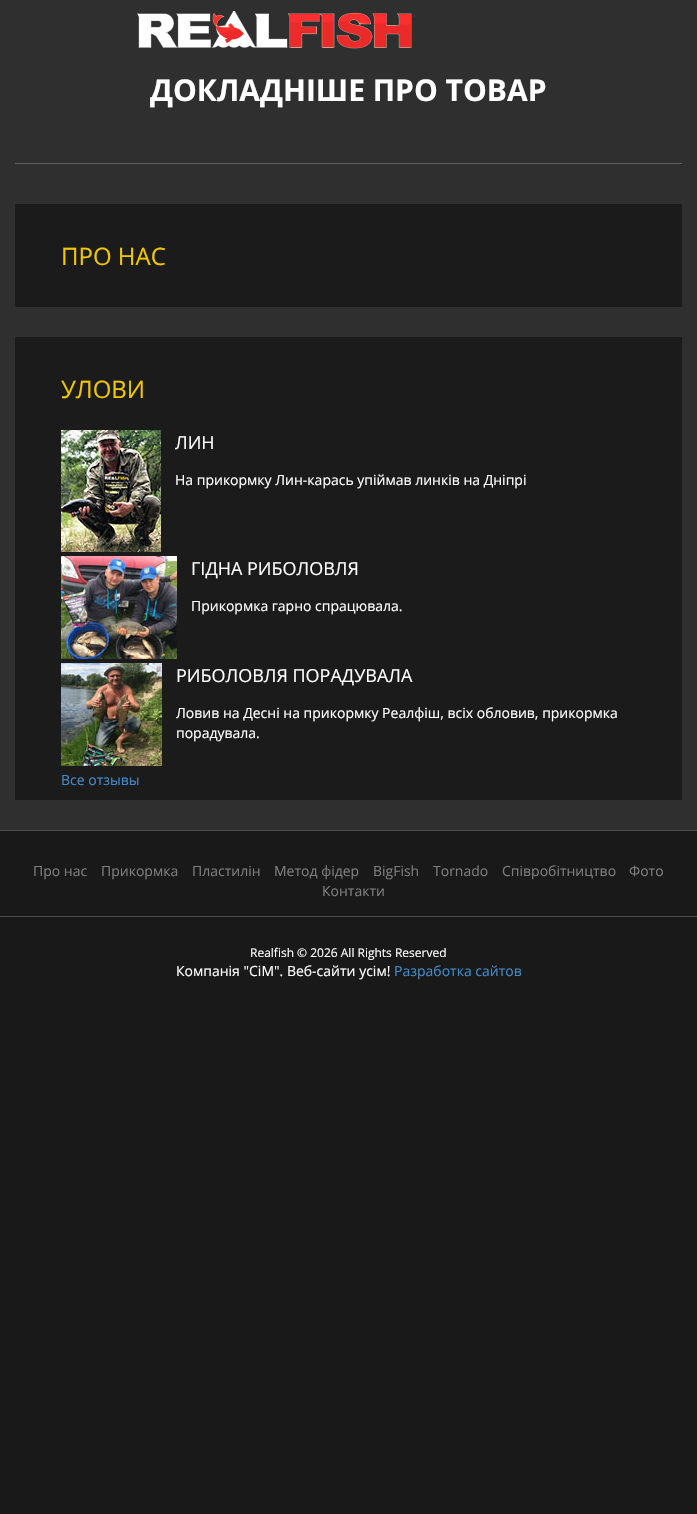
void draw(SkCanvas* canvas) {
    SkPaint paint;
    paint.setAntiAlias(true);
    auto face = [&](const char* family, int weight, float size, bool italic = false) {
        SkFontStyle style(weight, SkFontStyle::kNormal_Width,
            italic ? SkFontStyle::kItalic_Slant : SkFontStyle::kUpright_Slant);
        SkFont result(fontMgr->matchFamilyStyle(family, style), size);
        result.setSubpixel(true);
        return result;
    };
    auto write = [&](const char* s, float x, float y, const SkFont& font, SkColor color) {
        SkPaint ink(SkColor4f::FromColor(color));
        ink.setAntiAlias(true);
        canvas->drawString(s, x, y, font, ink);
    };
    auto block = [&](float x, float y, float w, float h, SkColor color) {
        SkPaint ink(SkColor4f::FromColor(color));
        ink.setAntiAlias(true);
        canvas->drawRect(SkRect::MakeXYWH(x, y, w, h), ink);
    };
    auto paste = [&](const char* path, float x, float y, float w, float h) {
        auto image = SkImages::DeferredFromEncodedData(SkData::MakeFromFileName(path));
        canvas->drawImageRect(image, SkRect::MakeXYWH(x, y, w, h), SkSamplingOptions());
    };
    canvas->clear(SkColorSetRGB(25, 25, 25));
    block(0, 0, 697, 830, SkColorSetRGB(47, 47, 47));
    paste("pic1.png", 137, 11, 278, 38);
    auto kFont1 = face("Open Sans", 700, 30);
    write("ДОКЛАДНІШЕ ПРО ТОВАР", 150, 101, kFont1, SK_ColorWHITE);
    block(15, 163, 667, 1, SkColorSetRGB(93, 93, 93));
    block(15, 204, 667, 103, SkColorSetRGB(27, 27, 27));
    auto kFont2 = face("Open Sans", 400, 24);
    write("ПРО НАС", 61, 265, kFont2, SkColorSetRGB(239, 199, 0));
    block(15, 337, 667, 463, SkColorSetRGB(27, 27, 27));
    write("УЛОВИ", 61, 398, kFont2, SkColorSetRGB(239, 199, 0));
    paste("pic2.png", 61, 430, 100, 122);
    auto kFont3 = face("Open Sans", 400, 18);
    write("ЛИН", 175, 449, kFont3, SK_ColorWHITE);
    auto kFont4 = face("Open Sans", 400, 14);
    write("На прикормку Лин-карась упіймав линків на Дніпрі", 175, 485, kFont4, SK_ColorWHITE);
    paste("pic3.png", 61, 556, 116, 103);
    write("ГІДНА РИБОЛОВЛЯ", 191, 575, kFont3, SK_ColorWHITE);
    write("Прикормка гарно спрацювала.", 191, 611, kFont4, SK_ColorWHITE);
    paste("pic4.png", 61, 663, 101, 103);
    write("РИБОЛОВЛЯ ПОРАДУВАЛА", 176, 682, kFont3, SK_ColorWHITE);
    write("Ловив на Десні на прикормку Реалфіш, всіх обловив, прикормка", 176, 718, kFont4, SK_ColorWHITE);
    write("порадувала.", 176, 738, kFont4, SK_ColorWHITE);
    write("Все отзывы", 61, 785, kFont4, SkColorSetRGB(66, 139, 202));
    block(0, 830, 697, 1, SkColorSetRGB(76, 76, 76));
    block(0, 916, 697, 1, SkColorSetRGB(76, 76, 76));
    write("Про нас", 33, 876, kFont4, SkColorSetRGB(125, 125, 125));
    write("Прикормка", 101, 876, kFont4, SkColorSetRGB(125, 125, 125));
    write("Пластилін", 192, 876, kFont4, SkColorSetRGB(125, 125, 125));
    write("Метод фідер", 274, 876, kFont4, SkColorSetRGB(125, 125, 125));
    write("BigFish", 373, 876, kFont4, SkColorSetRGB(125, 125, 125));
    write("Tornado", 433, 876, kFont4, SkColorSetRGB(125, 125, 125));
    write("Співробітництво", 502, 876, kFont4, SkColorSetRGB(125, 125, 125));
    write("Фото", 629, 876, kFont4, SkColorSetRGB(125, 125, 125));
    write("Контакти", 322, 896, kFont4, SkColorSetRGB(125, 125, 125));
    auto kFont5 = face("Open Sans", 400, 12);
    write("Realfish © 2026 All Rights Reserved", 250, 957, kFont5, SK_ColorWHITE);
    write("Компанія \"СіМ\". Веб-cайти усім!", 176, 976, kFont4, SK_ColorWHITE);
    write("Разработка сайтов", 394, 976, kFont4, SkColorSetRGB(66, 139, 202));
}
